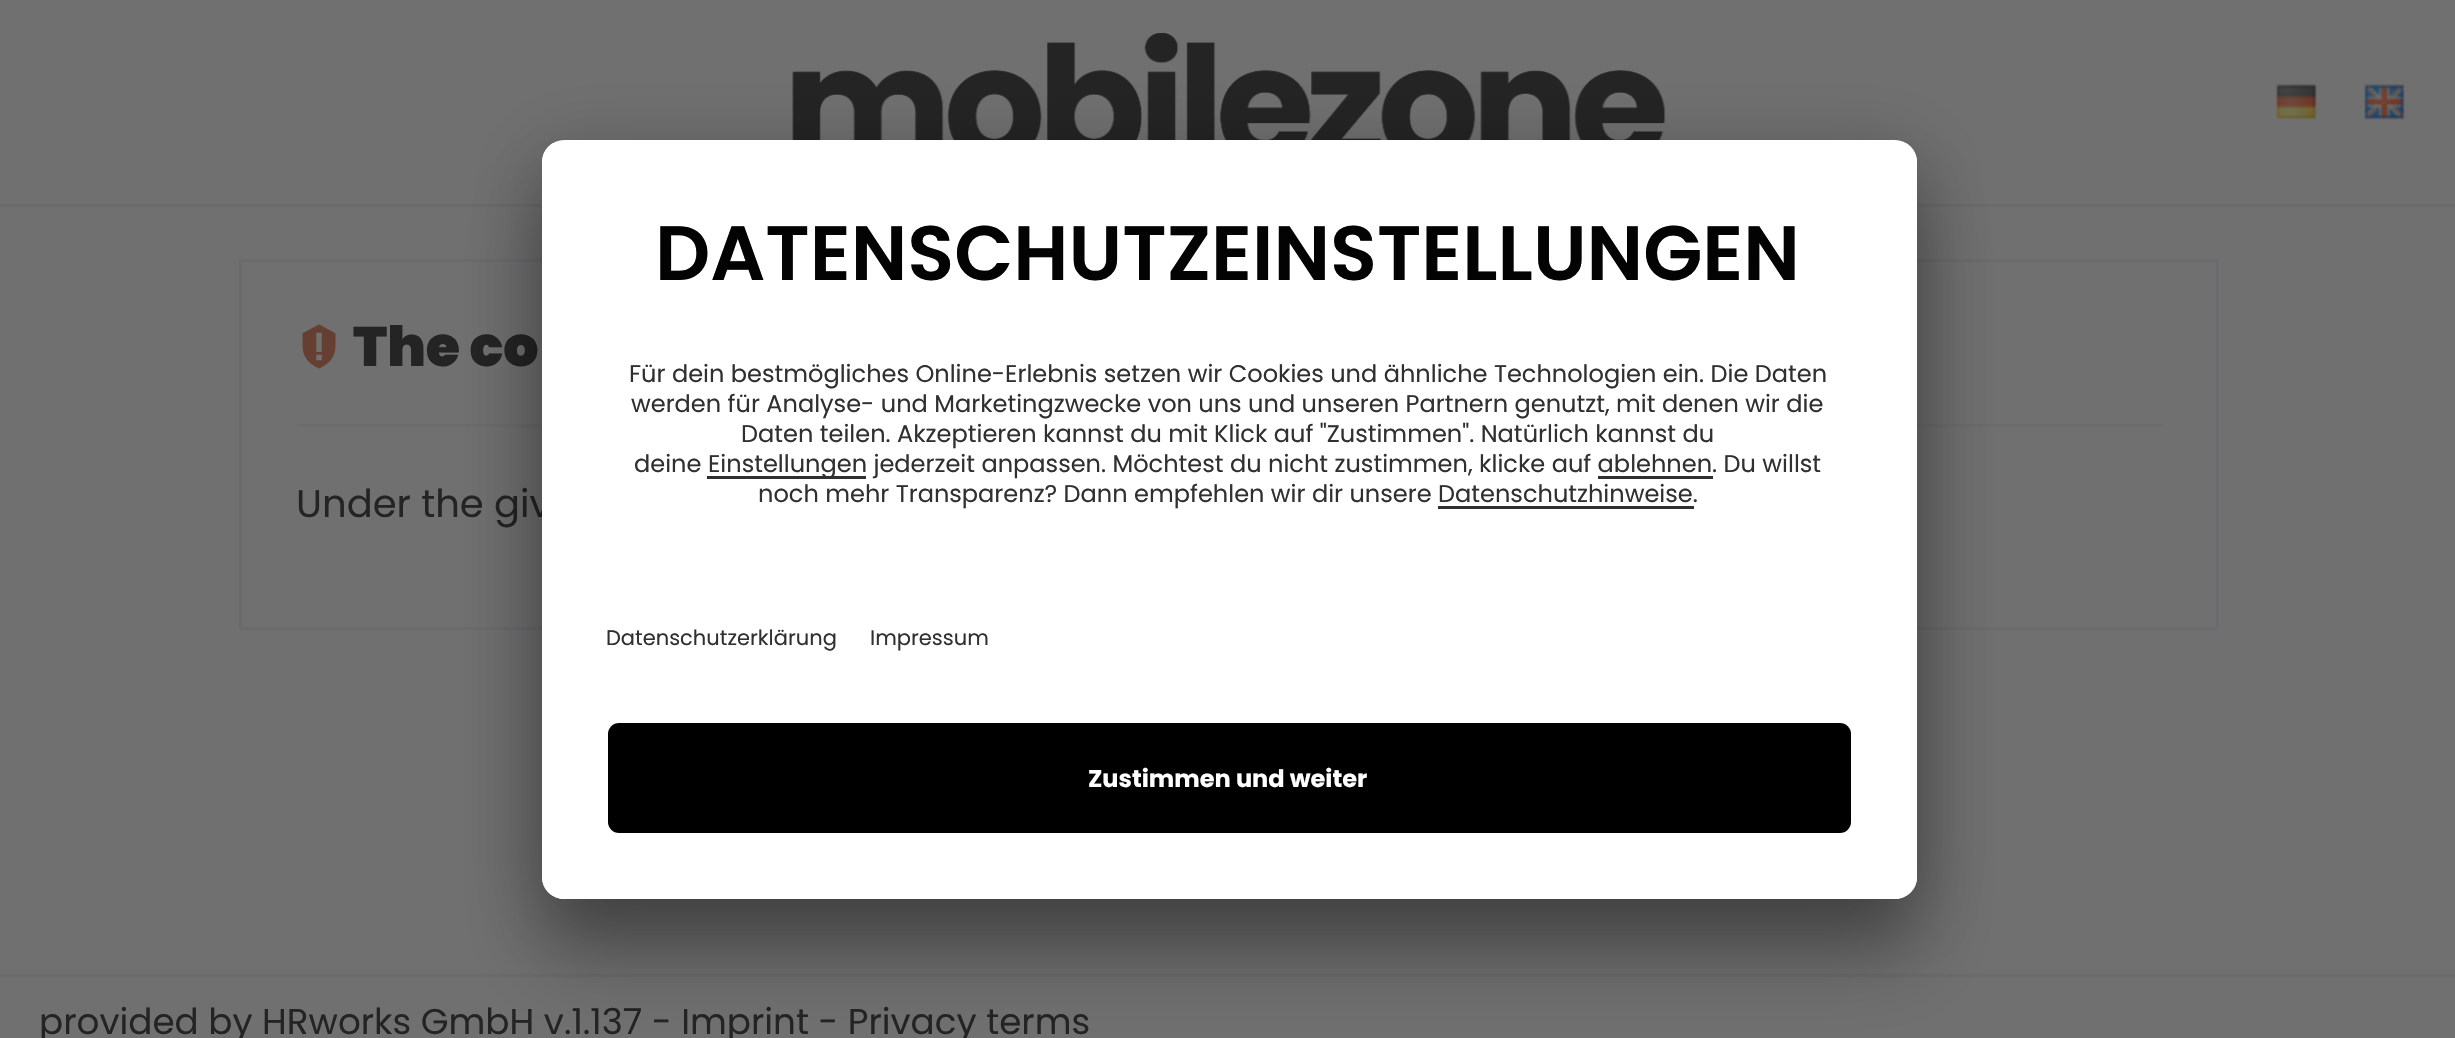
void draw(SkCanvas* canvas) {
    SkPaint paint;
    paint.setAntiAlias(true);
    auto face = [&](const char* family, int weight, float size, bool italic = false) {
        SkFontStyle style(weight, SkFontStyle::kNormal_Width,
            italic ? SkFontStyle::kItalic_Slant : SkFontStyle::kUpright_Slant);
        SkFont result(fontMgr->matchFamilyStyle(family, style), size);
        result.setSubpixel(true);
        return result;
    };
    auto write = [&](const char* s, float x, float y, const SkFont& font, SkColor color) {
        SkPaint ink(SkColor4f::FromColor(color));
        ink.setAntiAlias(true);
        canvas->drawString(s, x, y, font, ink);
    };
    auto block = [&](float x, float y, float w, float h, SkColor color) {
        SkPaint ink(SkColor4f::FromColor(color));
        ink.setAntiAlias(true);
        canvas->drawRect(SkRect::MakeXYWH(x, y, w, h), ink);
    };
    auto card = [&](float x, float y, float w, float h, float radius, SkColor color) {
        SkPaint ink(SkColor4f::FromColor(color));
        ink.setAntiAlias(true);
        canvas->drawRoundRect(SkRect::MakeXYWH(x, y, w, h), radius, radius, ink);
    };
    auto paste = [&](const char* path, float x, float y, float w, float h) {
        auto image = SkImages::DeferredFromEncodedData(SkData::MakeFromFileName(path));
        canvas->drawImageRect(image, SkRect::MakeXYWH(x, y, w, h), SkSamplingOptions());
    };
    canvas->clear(SkColorSetRGB(112, 112, 112));
    block(0, 204, 2455, 3, SkColorSetRGB(106, 107, 109));
    paste("pic1.png", 792, 33, 874, 107);
    paste("pic2.png", 2276, 83, 41, 37);
    paste("pic3.png", 2364, 83, 41, 37);
    paint.setStyle(SkPaint::kStroke_Style);
    paint.setStrokeWidth(3);
    paint.setColor(SkColorSetRGB(105, 107, 108));
    canvas->drawRect(SkRect::MakeXYWH(240.5f, 260.5f, 1977, 368), paint);
    block(297, 424, 1865, 3, SkColorSetRGB(107, 108, 109));
    paste("pic4.png", 302, 324, 34, 45);
    auto kFont1 = face("Poppins", 900, 55.5f);
    write("The co", 353, 366, kFont1, SkColorSetRGB(36, 36, 36));
    auto kFont2 = face("Poppins", 400, 38.5f);
    write("Under the giv", 296, 517, kFont2, SkColorSetRGB(36, 36, 36));
    block(0, 974, 2455, 3, SkColorSetRGB(106, 107, 109));
    auto kFont3 = face("Poppins", 400, 35.75f);
    write("provided by HRworks GmbH v.1.137 - Imprint - Privacy terms", 39, 1034, kFont3, SkColorSetRGB(36, 36, 36));
    paint.setStyle(SkPaint::kFill_Style);
    paint.setColor(SkColorSetARGB(77, 0, 0, 0));
    paint.setMaskFilter(SkMaskFilter::MakeBlur(kNormal_SkBlurStyle, 38.5f));
    canvas->drawRoundRect(SkRect::MakeXYWH(542, 195, 1375, 759), 22, 22, paint);
    paint.setMaskFilter(nullptr);
    paint.setColor(SkColorSetARGB(56, 0, 0, 0));
    paint.setMaskFilter(SkMaskFilter::MakeBlur(kNormal_SkBlurStyle, 36));
    canvas->drawRoundRect(SkRect::MakeXYWH(542, 154, 1375, 759), 22, 22, paint);
    paint.setMaskFilter(nullptr);
    card(542, 140, 1375, 759, 22, SK_ColorWHITE);
    canvas->save();
    canvas->clipPath(SkPathBuilder().moveTo(564, 140).lineTo(1895, 140).cubicTo(1907, 140, 1917, 150, 1917, 162).lineTo(1917, 877).cubicTo(1917, 889, 1907, 899, 1895, 899).lineTo(564, 899).cubicTo(552, 899, 542, 889, 542, 877).lineTo(542, 162).cubicTo(542, 150, 552, 140, 564, 140).close().detach(), true);
    canvas->clipPath(SkPathBuilder().moveTo(564, 140).lineTo(1895, 140).cubicTo(1907, 140, 1917, 150, 1917, 162).lineTo(1917, 701).lineTo(542, 701).lineTo(542, 162).cubicTo(542, 150, 552, 140, 564, 140).close().detach(), true);
    block(542, 143, 1375, 558, SK_ColorWHITE);
    canvas->restore();
    auto kFont4 = face("Poppins", 600, 77);
    write("DATENSCHUTZEINSTELLUNGEN", 655, 280, kFont4, SkColorSetRGB(3, 3, 3));
    auto kFont5 = face("Poppins", 400, 24.05f);
    write("Für dein bestmögliches Online-Erlebnis setzen wir Cookies und ähnliche Technologien ein. Die Daten", 629, 382, kFont5, SkColorSetRGB(48, 48, 48));
    write("werden für Analyse- und Marketingzwecke von uns und unseren Partnern genutzt, mit denen wir die", 631, 412, kFont5, SkColorSetRGB(48, 48, 48));
    write("Daten teilen. Akzeptieren kannst du mit Klick auf \"Zustimmen\". Natürlich kannst du", 741, 442, kFont5, SkColorSetRGB(48, 48, 48));
    write("deine", 634, 472, kFont5, SkColorSetRGB(48, 48, 48));
    block(707, 476, 159, 3, SkColorSetRGB(48, 48, 48));
    write("Einstellungen jederzeit anpassen. Möchtest du nicht zustimmen, klicke auf ablehnen. Du willst", 708, 472, kFont5, SkColorSetRGB(48, 48, 48));
    block(1598, 476, 115, 3, SkColorSetRGB(48, 48, 48));
    write("noch mehr Transparenz? Dann empfehlen wir dir unsere Datenschutzhinweise.", 758, 502, kFont5, SkColorSetRGB(48, 48, 48));
    block(1438, 506, 256, 3, SkColorSetRGB(48, 48, 48));
    auto kFont6 = face("Poppins", 400, 21);
    write("Datenschutzerklärung", 606, 645, kFont6, SkColorSetRGB(48, 48, 48));
    write("Impressum", 870, 645, kFont6, SkColorSetRGB(48, 48, 48));
    paint.setColor(SK_ColorWHITE);
    canvas->drawPath(SkPathBuilder().moveTo(542, 701).lineTo(1917, 701).lineTo(1917, 877).cubicTo(1917, 889, 1907, 899, 1895, 899).lineTo(564, 899).cubicTo(552, 899, 542, 889, 542, 877).close().detach(), paint);
    card(608, 723, 1243, 110, 11, SK_ColorBLACK);
    auto kFont7 = face("Poppins", 700, 24.05f);
    write("Zustimmen und weiter", 1088, 787, kFont7, SK_ColorWHITE);
}
